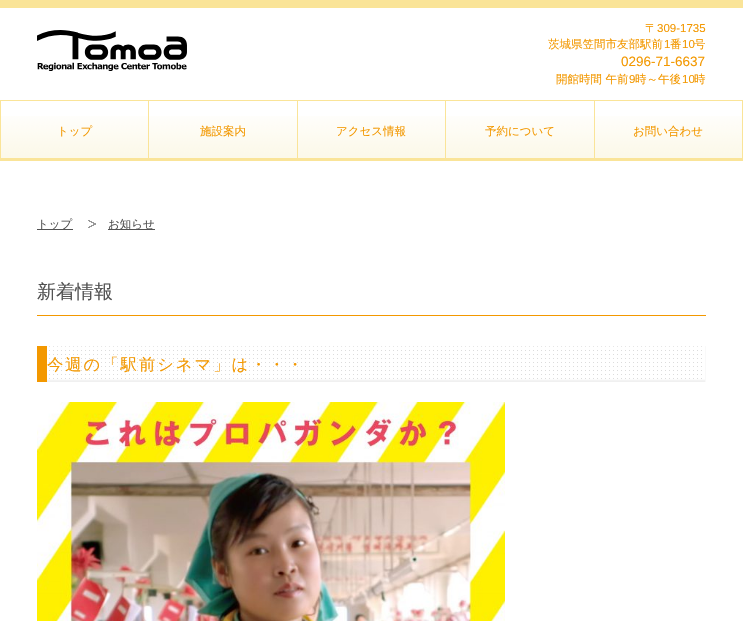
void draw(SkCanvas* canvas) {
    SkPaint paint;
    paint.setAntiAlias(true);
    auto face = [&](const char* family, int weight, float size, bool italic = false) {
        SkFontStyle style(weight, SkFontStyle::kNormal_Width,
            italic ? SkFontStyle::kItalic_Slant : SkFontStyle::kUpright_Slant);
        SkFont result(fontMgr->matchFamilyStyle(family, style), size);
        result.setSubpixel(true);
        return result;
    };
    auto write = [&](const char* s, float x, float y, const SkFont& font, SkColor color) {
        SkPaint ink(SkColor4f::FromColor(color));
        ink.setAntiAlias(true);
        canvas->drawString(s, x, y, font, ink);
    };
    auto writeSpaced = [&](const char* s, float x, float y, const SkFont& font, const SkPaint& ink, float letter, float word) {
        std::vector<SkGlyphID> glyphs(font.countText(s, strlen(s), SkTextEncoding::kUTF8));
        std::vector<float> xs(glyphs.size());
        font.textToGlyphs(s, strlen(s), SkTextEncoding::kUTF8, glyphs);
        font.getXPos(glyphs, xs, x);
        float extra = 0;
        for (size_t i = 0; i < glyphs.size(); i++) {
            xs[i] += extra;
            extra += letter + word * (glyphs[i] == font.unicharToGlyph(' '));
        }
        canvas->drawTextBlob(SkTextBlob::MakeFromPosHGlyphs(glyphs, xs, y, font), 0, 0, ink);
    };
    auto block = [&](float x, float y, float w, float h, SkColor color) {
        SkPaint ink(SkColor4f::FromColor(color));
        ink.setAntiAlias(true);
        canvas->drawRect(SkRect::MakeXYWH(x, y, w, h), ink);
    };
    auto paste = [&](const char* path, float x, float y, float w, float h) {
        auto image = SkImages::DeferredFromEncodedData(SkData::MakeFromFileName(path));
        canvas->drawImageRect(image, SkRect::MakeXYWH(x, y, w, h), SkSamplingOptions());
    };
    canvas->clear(SK_ColorWHITE);
    block(0, 0, 743, 8, SkColorSetRGB(250, 228, 152));
    paste("pic1.png", 37, 30, 150, 41);
    auto kFont1 = face("WenQuanYi Zen Hei", 500, 11.5f);
    write("〒", 645, 32, kFont1, SkColorSetRGB(243, 152, 0));
    auto kFont2 = face("Liberation Sans", 400, 11.5f);
    write("309-1735", 657, 32, kFont2, SkColorSetRGB(243, 152, 0));
    write("茨城県笠間市友部駅前", 548, 48, kFont1, SkColorSetRGB(243, 152, 0));
    write("1", 664, 48, kFont2, SkColorSetRGB(243, 152, 0));
    write("番", 670, 48, kFont1, SkColorSetRGB(243, 152, 0));
    write("10", 682, 48, kFont2, SkColorSetRGB(243, 152, 0));
    write("号", 694, 48, kFont1, SkColorSetRGB(243, 152, 0));
    auto kFont3 = face("Liberation Sans", 400, 13.5f);
    write("0296-71-6637", 621, 66, kFont3, SkColorSetRGB(243, 152, 0));
    write("開館時間 午前", 556, 83, kFont1, SkColorSetRGB(243, 152, 0));
    write("9", 629, 83, kFont2, SkColorSetRGB(243, 152, 0));
    write("時～午後", 635, 83, kFont1, SkColorSetRGB(243, 152, 0));
    write("10", 682, 83, kFont2, SkColorSetRGB(243, 152, 0));
    write("時", 694, 83, kFont1, SkColorSetRGB(243, 152, 0));
    paste("pic2.png", 1, 116, 741, 45);
    block(0, 100, 743, 1, SkColorSetRGB(250, 228, 152));
    block(0, 101, 1, 60, SkColorSetRGB(250, 228, 152));
    block(148, 101, 1, 60, SkColorSetRGB(250, 228, 152));
    write("トップ", 57, 135, kFont1, SkColorSetRGB(243, 152, 0));
    block(297, 101, 1, 60, SkColorSetRGB(250, 228, 152));
    write("施設案内", 200, 135, kFont1, SkColorSetRGB(243, 152, 0));
    block(445, 101, 1, 60, SkColorSetRGB(250, 228, 152));
    write("アクセス情報", 336, 135, kFont1, SkColorSetRGB(243, 152, 0));
    block(594, 101, 1, 60, SkColorSetRGB(250, 228, 152));
    write("予約について", 485, 135, kFont1, SkColorSetRGB(243, 152, 0));
    block(742, 101, 1, 60, SkColorSetRGB(250, 228, 152));
    write("お問い合わせ", 633, 135, kFont1, SkColorSetRGB(243, 152, 0));
    block(37, 229, 36, 1, SkColorSetRGB(82, 82, 82));
    write("トップ", 37, 228, kFont1, SkColorSetRGB(82, 82, 82));
    paste("pic3.png", 88, 220, 8, 8);
    block(108, 229, 47, 1, SkColorSetRGB(82, 82, 82));
    write("お知らせ", 108, 228, kFont1, SkColorSetRGB(82, 82, 82));
    block(37, 315, 669, 1, SkColorSetRGB(243, 152, 0));
    auto kFont4 = face("WenQuanYi Zen Hei", 500, 19);
    write("新着情報", 37, 298, kFont4, SkColorSetRGB(82, 82, 82));
    paste("pic4.png", 47, 346, 658, 36);
    block(705, 346, 1, 36, SkColorSetRGB(249, 249, 249));
    block(37, 346, 10, 36, SkColorSetRGB(243, 152, 0));
    auto kFont5 = face("WenQuanYi Zen Hei", 500, 16.3f);
    paint.setColor(SkColorSetRGB(243, 152, 0));
    writeSpaced("今週の「駅前シネマ」は・・・", 47, 370, kFont5, paint, 2, 0);
    paste("pic5.png", 37, 402, 468, 219);
}
